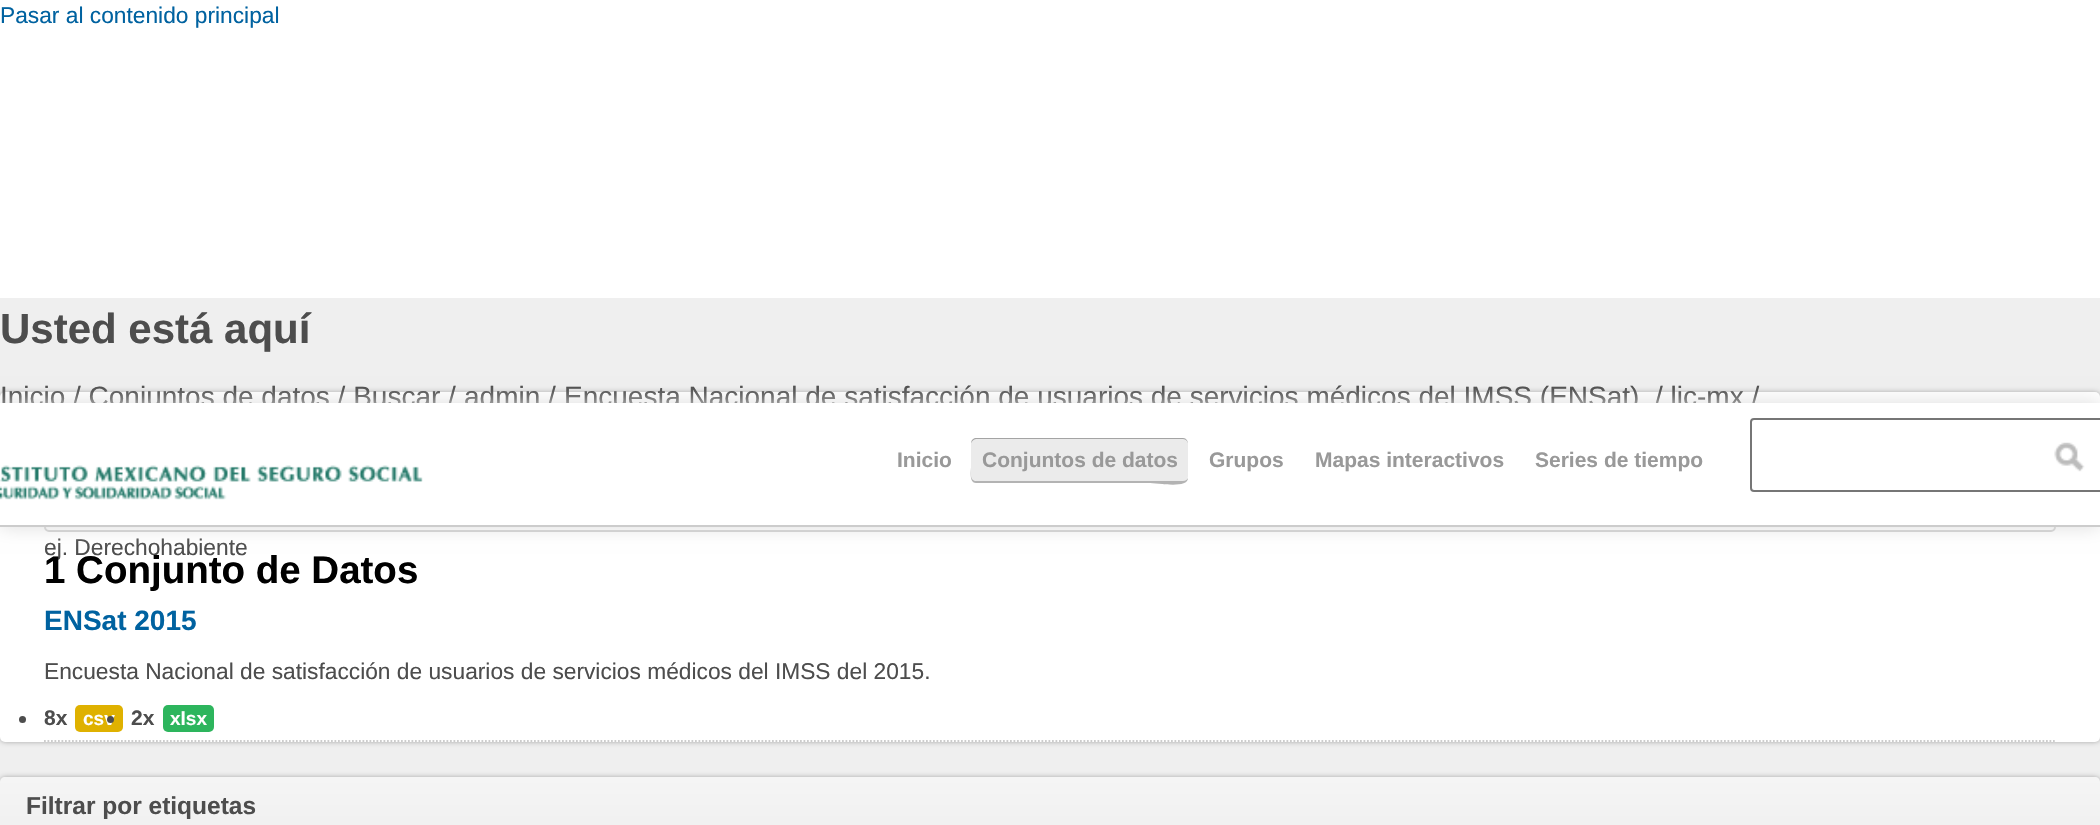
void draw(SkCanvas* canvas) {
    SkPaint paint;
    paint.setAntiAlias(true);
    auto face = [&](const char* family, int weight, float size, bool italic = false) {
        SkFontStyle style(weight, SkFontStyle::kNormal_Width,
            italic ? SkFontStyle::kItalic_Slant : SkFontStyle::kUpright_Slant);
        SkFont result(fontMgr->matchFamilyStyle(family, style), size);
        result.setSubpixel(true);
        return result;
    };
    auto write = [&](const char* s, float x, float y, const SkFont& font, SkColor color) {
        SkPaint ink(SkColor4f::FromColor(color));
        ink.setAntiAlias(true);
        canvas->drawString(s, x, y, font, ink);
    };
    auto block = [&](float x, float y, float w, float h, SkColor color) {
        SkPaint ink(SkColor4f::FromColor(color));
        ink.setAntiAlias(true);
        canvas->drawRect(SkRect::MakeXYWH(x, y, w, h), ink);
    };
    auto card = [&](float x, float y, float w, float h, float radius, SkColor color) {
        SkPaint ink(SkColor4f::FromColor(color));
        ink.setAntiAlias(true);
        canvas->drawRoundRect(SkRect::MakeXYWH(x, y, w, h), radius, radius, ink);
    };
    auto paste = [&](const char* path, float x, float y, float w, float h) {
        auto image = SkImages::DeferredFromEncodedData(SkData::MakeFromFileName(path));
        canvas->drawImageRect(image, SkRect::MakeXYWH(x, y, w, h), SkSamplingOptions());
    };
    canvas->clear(SK_ColorWHITE);
    auto kFont1 = face("Liberation Sans", 400, 22.75f);
    write("Pasar al contenido principal", 0, 23, kFont1, SkColorSetRGB(0, 98, 160));
    block(0, 298, 2100, 484, SkColorSetRGB(239, 239, 239));
    auto kFont2 = face("Liberation Sans", 700, 42);
    write("Usted está aquí", 0, 343, kFont2, SkColorSetRGB(77, 77, 77));
    paint.setColor(SkColorSetARGB(77, 0, 0, 0));
    paint.setMaskFilter(SkMaskFilter::MakeBlur(kNormal_SkBlurStyle, 2.5f));
    canvas->drawRoundRect(SkRect::MakeXYWH(0, 392, 2100, 350), 5, 5, paint);
    paint.setMaskFilter(nullptr);
    card(0, 392, 2100, 350, 5, SK_ColorWHITE);
    auto kFont3 = face("Liberation Sans", 400, 28);
    write("Inicio", 0, 406, kFont3, SkColorSetRGB(77, 77, 77));
    write("/ Conjuntos de datos / Buscar /", 73, 406, kFont3, SkColorSetRGB(77, 77, 77));
    write("admin", 464, 406, kFont3, SkColorSetRGB(77, 77, 77));
    write("/", 548, 406, kFont3, SkColorSetRGB(77, 77, 77));
    write("Encuesta Nacional de satisfacción de usuarios de servicios médicos del IMSS (ENSat)", 564, 406, kFont3, SkColorSetRGB(77, 77, 77));
    write("/ lic-mx /", 1655, 406, kFont3, SkColorSetRGB(77, 77, 77));
    paint.setStyle(SkPaint::kStroke_Style);
    paint.setStrokeWidth(2);
    paint.setColor(SkColorSetRGB(204, 204, 204));
    canvas->drawRoundRect(SkRect::MakeXYWH(45, 449, 2010, 82), 4, 4, paint);
    write("ej. Derechohabiente", 44, 555, kFont1, SkColorSetRGB(77, 77, 77));
    auto kFont4 = face("Liberation Sans", 700, 38.5f);
    write("1 Conjunto de Datos", 44, 583, kFont4, SK_ColorBLACK);
    paint.setStrokeWidth(1.8f);
    paint.setPathEffect(SkDashPathEffect::Make({{1.75f, 1.75f}}, 0));
    canvas->drawPath(SkPathBuilder().moveTo(44, 741).lineTo(2056, 741).detach(), paint);
    paint.setPathEffect(nullptr);
    auto kFont5 = face("Liberation Sans", 700, 28);
    write("ENSat 2015", 44, 630, kFont5, SkColorSetRGB(0, 98, 160));
    write("Encuesta Nacional de satisfacción de usuarios de servicios médicos del IMSS del 2015.", 44, 679, kFont1, SkColorSetRGB(77, 77, 77));
    paint.setStyle(SkPaint::kFill_Style);
    paint.setColor(SkColorSetRGB(77, 77, 77));
    canvas->drawCircle(22.5f, 719.5f, 3.5f, paint);
    auto kFont6 = face("Liberation Sans", 700, 21);
    write("8x", 44, 725, kFont6, SkColorSetRGB(77, 77, 77));
    card(75, 705, 48, 27, 5, SkColorSetRGB(223, 177, 0));
    auto kFont7 = face("Liberation Sans", 700, 19);
    write("csv", 83, 725, kFont7, SK_ColorWHITE);
    canvas->drawCircle(110.5f, 719.5f, 3.5f, paint);
    write("2x", 131, 725, kFont6, SkColorSetRGB(77, 77, 77));
    card(163, 705, 51, 27, 5, SkColorSetRGB(45, 181, 93));
    write("xlsx", 170, 725, kFont7, SK_ColorWHITE);
    paint.setColor(SkColorSetARGB(77, 0, 0, 0));
    paint.setMaskFilter(SkMaskFilter::MakeBlur(kNormal_SkBlurStyle, 2.5f));
    canvas->drawRoundRect(SkRect::MakeXYWH(0, 777, 2100, 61), 5, 5, paint);
    paint.setMaskFilter(nullptr);
    {
        const SkColor colors[] = {SkColorSetRGB(245, 245, 245), SkColorSetRGB(240, 240, 240)};
        const float stops[] = {0, 1};
        const SkPoint ends[] = {{1050, 777}, {1050, 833}};
        paint.setShader(SkGradientShader::MakeLinear(ends, colors, stops, 2, SkTileMode::kClamp));
        paint.setAlpha(255);
    }
    canvas->drawPath(SkPathBuilder().moveTo(5, 777).lineTo(2095, 777).cubicTo(2098, 777, 2100, 779, 2100, 782).lineTo(2100, 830).lineTo(0, 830).lineTo(0, 782).cubicTo(0, 779, 2, 777, 5, 777).close().detach(), paint);
    auto kFont8 = face("Liberation Sans", 700, 24.5f);
    write("Filtrar por etiquetas", 26, 814, kFont8, SkColorSetRGB(77, 77, 77));
    paint.setShader(nullptr);
    paint.setColor(SkColorSetRGB(221, 221, 221));
    paint.setMaskFilter(SkMaskFilter::MakeBlur(kNormal_SkBlurStyle, 9));
    canvas->drawRect(SkRect::MakeXYWH(0, 403, 2100, 124), paint);
    paint.setMaskFilter(nullptr);
    block(0, 403, 2100, 122, SK_ColorWHITE);
    block(0, 525, 2100, 2, SkColorSetRGB(204, 204, 204));
    write("Inicio", 897, 467, kFont6, SkColorSetRGB(153, 153, 153));
    paint.setColor(SkColorSetRGB(179, 179, 179));
    canvas->drawPath(SkPathBuilder().moveTo(971, 442).lineTo(971, 467).cubicTo(971, 471, 969, 483, 976, 483).lineTo(1148, 483).cubicTo(1158, 483, 1188, 489, 1188, 478).cubicTo(1187, 480, 1185, 481, 1183, 481).lineTo(976, 481).cubicTo(974, 481, 971, 479, 971, 476).close().detach(), paint);
    card(971, 438, 217, 43, 5, SkColorSetARGB(20, 0, 0, 0));
    paint.setColor(SkColorSetARGB(77, 0, 0, 0));
    canvas->drawPath(SkPathBuilder().moveTo(976, 439).lineTo(1183, 439).cubicTo(1186, 439, 1188, 442, 1188, 444).cubicTo(1188, 441, 1186, 438, 1183, 438).lineTo(975, 438).cubicTo(972, 439, 971, 441, 971, 444).cubicTo(971, 442, 974, 439, 976, 439).close().detach(), paint);
    write("Conjuntos de datos", 982, 467, kFont6, SkColorSetRGB(153, 153, 153));
    write("Grupos", 1209, 467, kFont6, SkColorSetRGB(153, 153, 153));
    write("Mapas interactivos", 1315, 467, kFont6, SkColorSetRGB(153, 153, 153));
    write("Series de tiempo", 1535, 467, kFont6, SkColorSetRGB(153, 153, 153));
    paint.setStyle(SkPaint::kStroke_Style);
    paint.setStrokeWidth(2);
    paint.setColor(SkColorSetRGB(118, 118, 118));
    canvas->drawRoundRect(SkRect::MakeXYWH(1751, 419, 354, 72), 3, 3, paint);
    paste("pic1.png", 2054, 442, 31, 30);
    paste("pic2.png", 0, 465, 423, 35);
}
